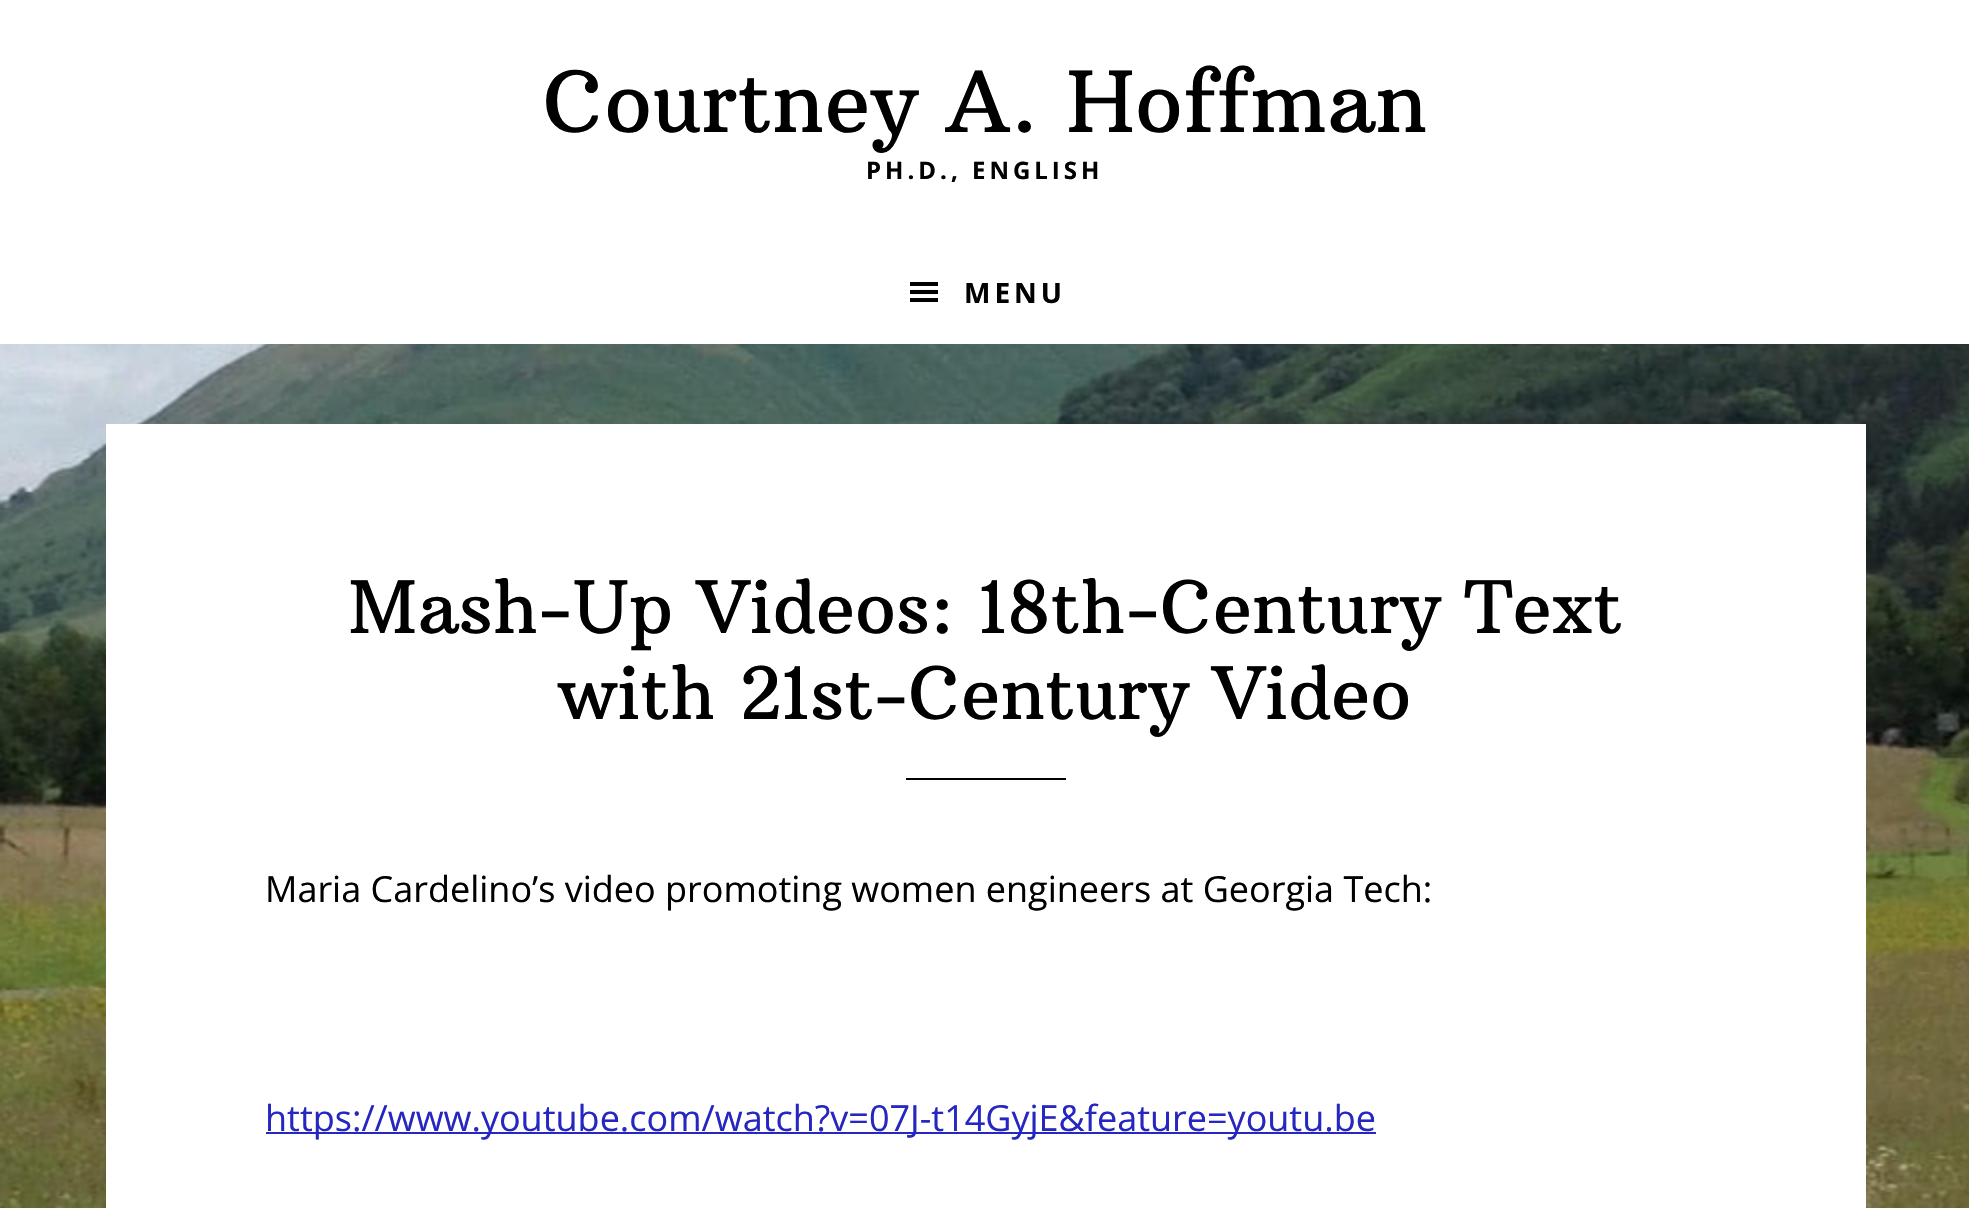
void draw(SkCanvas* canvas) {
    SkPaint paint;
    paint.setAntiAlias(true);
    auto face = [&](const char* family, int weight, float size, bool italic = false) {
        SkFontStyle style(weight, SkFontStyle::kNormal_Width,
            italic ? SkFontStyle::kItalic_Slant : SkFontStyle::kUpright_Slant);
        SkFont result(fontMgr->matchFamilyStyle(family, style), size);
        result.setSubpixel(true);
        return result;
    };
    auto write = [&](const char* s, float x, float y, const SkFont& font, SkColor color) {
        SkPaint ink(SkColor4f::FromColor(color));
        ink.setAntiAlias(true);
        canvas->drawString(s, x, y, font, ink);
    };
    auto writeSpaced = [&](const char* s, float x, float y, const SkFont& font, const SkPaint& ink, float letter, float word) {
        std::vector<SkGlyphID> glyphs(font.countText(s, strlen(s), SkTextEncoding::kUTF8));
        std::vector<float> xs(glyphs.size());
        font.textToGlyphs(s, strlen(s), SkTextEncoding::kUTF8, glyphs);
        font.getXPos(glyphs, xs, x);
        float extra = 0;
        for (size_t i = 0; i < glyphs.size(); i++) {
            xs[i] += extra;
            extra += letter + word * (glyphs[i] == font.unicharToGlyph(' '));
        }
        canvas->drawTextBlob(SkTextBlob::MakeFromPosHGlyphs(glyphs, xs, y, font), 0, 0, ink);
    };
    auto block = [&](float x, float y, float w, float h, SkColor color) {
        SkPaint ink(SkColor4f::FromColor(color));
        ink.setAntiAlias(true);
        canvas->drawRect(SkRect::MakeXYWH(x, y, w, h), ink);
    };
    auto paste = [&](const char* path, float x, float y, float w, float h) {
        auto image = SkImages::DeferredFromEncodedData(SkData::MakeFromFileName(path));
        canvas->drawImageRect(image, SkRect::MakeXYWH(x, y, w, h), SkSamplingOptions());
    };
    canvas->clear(SK_ColorWHITE);
    paste("pic1.png", 0, 344, 1969, 864);
    auto kFont1 = face("Arbutus Slab", 400, 84);
    write("Courtney A. Hoffman", 543, 132, kFont1, SK_ColorBLACK);
    auto kFont2 = face("Open Sans", 700, 24);
    paint.setColor(SK_ColorBLACK);
    writeSpaced("PH.D., ENGLISH", 866, 179, kFont2, paint, 4, 0);
    paste("pic2.png", 910, 282, 28, 20);
    auto kFont3 = face("Open Sans", 700, 28);
    writeSpaced("MENU", 964, 303, kFont3, paint, 4, 0);
    block(106, 424, 1760, 784, SK_ColorWHITE);
    auto kFont4 = face("Arbutus Slab", 400, 72);
    write("Mash-Up Videos: 18th-Century Text", 348, 633, kFont4, SK_ColorBLACK);
    write("with 21st-Century Video", 558, 719, kFont4, SK_ColorBLACK);
    block(906, 778, 160, 2, SK_ColorBLACK);
    auto kFont5 = face("Open Sans", 400, 36);
    write("Maria Cardelino’s video promoting women engineers at Georgia Tech:", 265, 902, kFont5, SK_ColorBLACK);
    block(266, 1132, 1110, 2, SkColorSetRGB(38, 38, 193));
    write("https://www.youtube.com/watch?v=07J-t14GyjE&feature=youtu.be", 265, 1131, kFont5, SkColorSetRGB(38, 38, 193));
}
